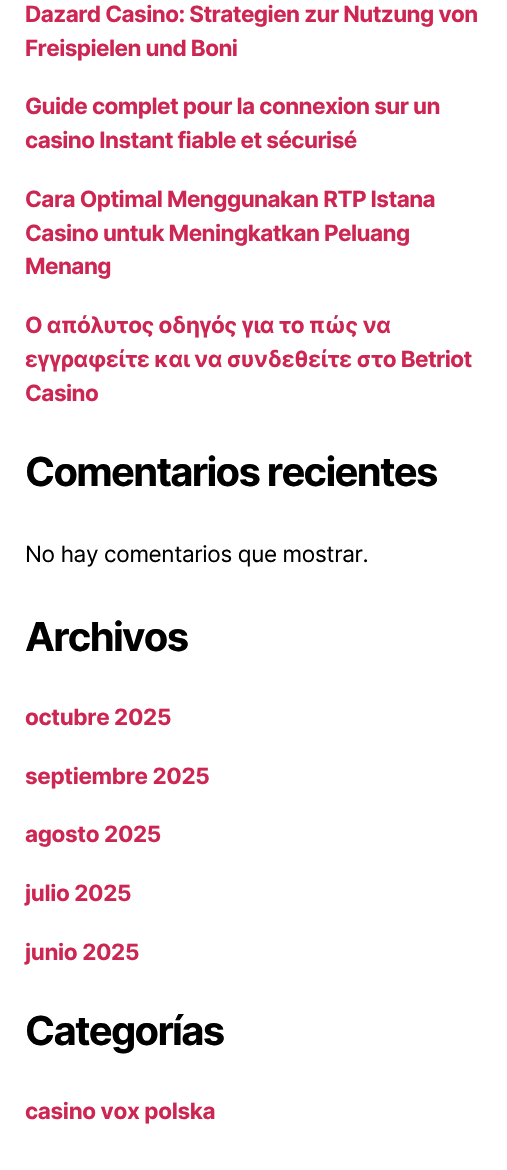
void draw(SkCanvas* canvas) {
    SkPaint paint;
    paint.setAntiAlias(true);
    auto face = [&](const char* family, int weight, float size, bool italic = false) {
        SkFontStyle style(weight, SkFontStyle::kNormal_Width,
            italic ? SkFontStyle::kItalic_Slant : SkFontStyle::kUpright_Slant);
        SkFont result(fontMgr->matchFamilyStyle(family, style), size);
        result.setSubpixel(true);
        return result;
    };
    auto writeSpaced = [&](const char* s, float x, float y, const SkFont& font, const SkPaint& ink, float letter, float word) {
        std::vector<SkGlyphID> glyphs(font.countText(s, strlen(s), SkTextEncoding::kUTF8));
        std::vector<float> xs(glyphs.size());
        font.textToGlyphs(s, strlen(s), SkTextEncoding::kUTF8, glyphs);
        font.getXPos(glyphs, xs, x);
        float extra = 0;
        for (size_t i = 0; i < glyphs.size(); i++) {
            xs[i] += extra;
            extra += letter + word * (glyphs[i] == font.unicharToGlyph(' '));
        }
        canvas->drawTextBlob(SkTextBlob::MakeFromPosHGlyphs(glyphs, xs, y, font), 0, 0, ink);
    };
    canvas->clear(SK_ColorWHITE);
    auto kFont1 = face("Inter", 700, 22.5f);
    paint.setColor(SkColorSetRGB(205, 38, 83));
    writeSpaced("Dazard Casino: Strategien zur Nutzung von", 25, 22, kFont1, paint, -0.55f, 0);
    writeSpaced("Freispielen und Boni", 25, 56, kFont1, paint, -0.55f, 0);
    writeSpaced("Guide complet pour la connexion sur un", 25, 114, kFont1, paint, -0.55f, 0);
    writeSpaced("casino Instant fiable et sécurisé", 25, 148, kFont1, paint, -0.55f, 0);
    writeSpaced("Cara Optimal Menggunakan RTP Istana", 25, 207, kFont1, paint, -0.55f, 0);
    writeSpaced("Casino untuk Meningkatkan Peluang", 25, 241, kFont1, paint, -0.55f, 0);
    writeSpaced("Menang", 25, 274, kFont1, paint, -0.55f, 0);
    writeSpaced("Ο απόλυτος οδηγός για το πώς να", 25, 333, kFont1, paint, -0.55f, 0);
    writeSpaced("εγγραφείτε και να συνδεθείτε στο Betriot", 25, 367, kFont1, paint, -0.55f, 0);
    writeSpaced("Casino", 25, 401, kFont1, paint, -0.55f, 0);
    auto kFont2 = face("Inter", 700, 40);
    paint.setColor(SK_ColorBLACK);
    writeSpaced("Comentarios recientes", 25, 486, kFont2, paint, -1.7f, 0);
    auto kFont3 = face("Inter", 400, 22.5f);
    writeSpaced("No hay comentarios que mostrar.", 25, 562, kFont3, paint, -0.35f, 0);
    writeSpaced("Archivos", 25, 651, kFont2, paint, -1.7f, 0);
    paint.setColor(SkColorSetRGB(205, 38, 83));
    writeSpaced("octubre 2025", 25, 725, kFont1, paint, -0.35f, 0);
    writeSpaced("septiembre 2025", 25, 784, kFont1, paint, -0.35f, 0);
    writeSpaced("agosto 2025", 25, 842, kFont1, paint, -0.35f, 0);
    writeSpaced("julio 2025", 25, 901, kFont1, paint, -0.35f, 0);
    writeSpaced("junio 2025", 25, 960, kFont1, paint, -0.35f, 0);
    paint.setColor(SK_ColorBLACK);
    writeSpaced("Categorías", 25, 1045, kFont2, paint, -1.7f, 0);
    paint.setColor(SkColorSetRGB(205, 38, 83));
    writeSpaced("casino vox polska", 25, 1119, kFont1, paint, -0.35f, 0);
}
